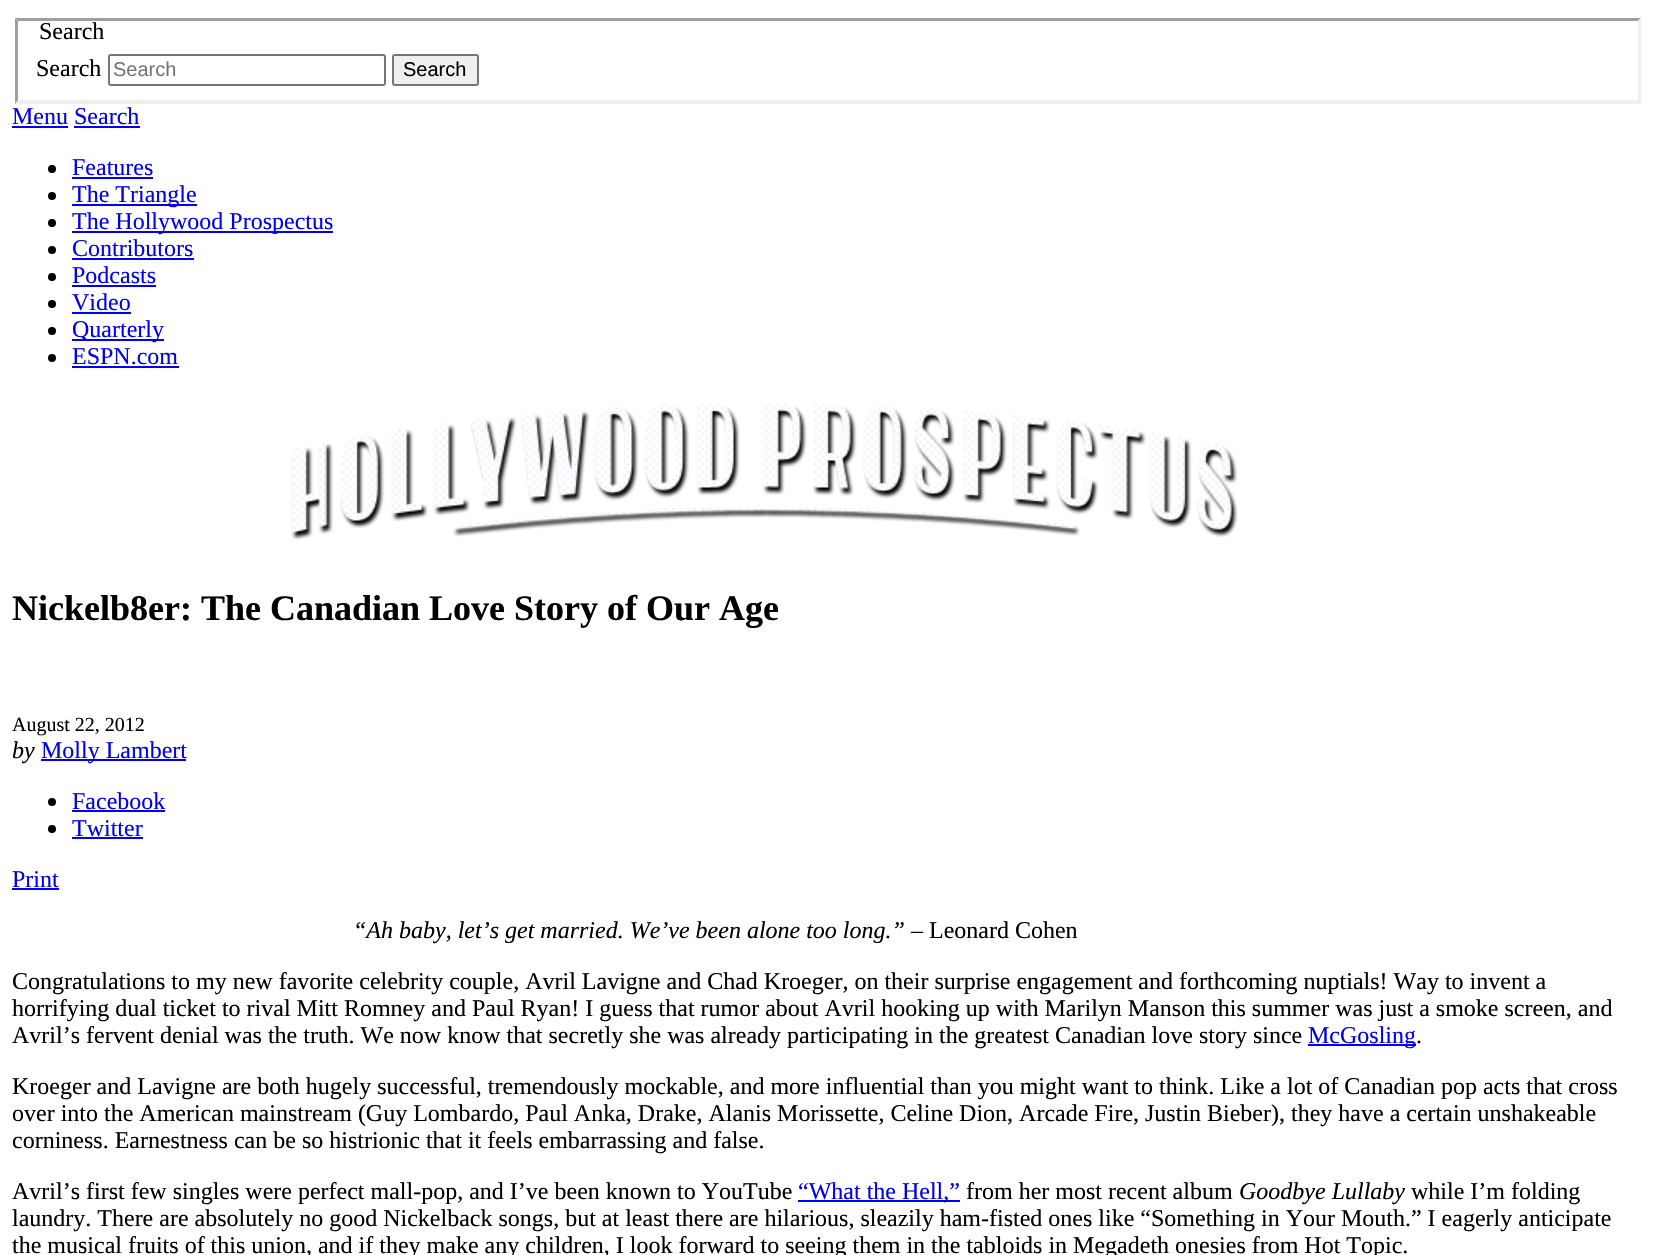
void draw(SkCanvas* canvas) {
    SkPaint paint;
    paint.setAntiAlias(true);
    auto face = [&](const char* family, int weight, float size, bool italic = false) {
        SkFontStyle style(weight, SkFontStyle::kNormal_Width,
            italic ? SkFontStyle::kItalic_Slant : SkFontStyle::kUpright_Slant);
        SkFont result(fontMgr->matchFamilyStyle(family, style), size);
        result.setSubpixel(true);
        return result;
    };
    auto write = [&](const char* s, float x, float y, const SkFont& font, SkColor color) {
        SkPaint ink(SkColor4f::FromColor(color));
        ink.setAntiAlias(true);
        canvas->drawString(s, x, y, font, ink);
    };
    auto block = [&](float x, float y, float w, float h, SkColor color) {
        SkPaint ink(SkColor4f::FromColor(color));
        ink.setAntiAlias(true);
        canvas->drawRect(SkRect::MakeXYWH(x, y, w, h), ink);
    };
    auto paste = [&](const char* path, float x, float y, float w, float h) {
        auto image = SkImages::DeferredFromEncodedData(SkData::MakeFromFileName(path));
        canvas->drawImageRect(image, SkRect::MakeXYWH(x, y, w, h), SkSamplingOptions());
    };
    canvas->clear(SK_ColorWHITE);
    paint.setColor(SkColorSetRGB(159, 159, 159));
    canvas->drawPath(SkPathBuilder().moveTo(15, 18).lineTo(1641, 18).lineTo(1638, 21).lineTo(18, 21).close().detach(), paint);
    paint.setColor(SkColorSetRGB(239, 239, 239));
    canvas->drawPath(SkPathBuilder().moveTo(1641, 18).lineTo(1641, 104).lineTo(1638, 100).lineTo(1638, 21).close().detach(), paint);
    canvas->drawPath(SkPathBuilder().moveTo(1641, 104).lineTo(15, 104).lineTo(18, 100).lineTo(1638, 100).close().detach(), paint);
    paint.setColor(SkColorSetRGB(159, 159, 159));
    canvas->drawPath(SkPathBuilder().moveTo(15, 104).lineTo(15, 18).lineTo(18, 21).lineTo(18, 100).close().detach(), paint);
    auto kFont1 = face("Liberation Serif", 400, 24);
    write("Search", 39, 39, kFont1, SK_ColorBLACK);
    write("Search", 36, 76, kFont1, SK_ColorBLACK);
    paint.setStyle(SkPaint::kStroke_Style);
    paint.setStrokeWidth(2);
    paint.setColor(SkColorSetRGB(118, 118, 118));
    canvas->drawRoundRect(SkRect::MakeXYWH(109, 55, 276, 30), 2, 2, paint);
    auto kFont2 = face("Liberation Sans", 400, 20);
    write("Search", 113, 76, kFont2, SkColorSetRGB(117, 117, 117));
    paint.setStyle(SkPaint::kFill_Style);
    paint.setColor(SkColorSetRGB(239, 239, 239));
    canvas->drawRoundRect(SkRect::MakeXYWH(393, 55, 85, 30), 2, 2, paint);
    paint.setStyle(SkPaint::kStroke_Style);
    paint.setColor(SkColorSetRGB(118, 118, 118));
    canvas->drawRoundRect(SkRect::MakeXYWH(393, 55, 85, 30), 2, 2, paint);
    write("Search", 403, 76, kFont2, SK_ColorBLACK);
    write("Menu Search", 12, 124, kFont1, SkColorSetRGB(0, 0, 238));
    block(12, 126, 56, 2, SkColorSetRGB(0, 0, 238));
    block(74, 126, 66, 2, SkColorSetRGB(0, 0, 238));
    paint.setStyle(SkPaint::kFill_Style);
    paint.setColor(SK_ColorBLACK);
    canvas->drawCircle(52, 169, 4, paint);
    write("Features", 72, 175, kFont1, SkColorSetRGB(0, 0, 238));
    block(72, 177, 81, 2, SkColorSetRGB(0, 0, 238));
    canvas->drawCircle(52, 196, 4, paint);
    block(72, 204, 125, 2, SkColorSetRGB(0, 0, 238));
    write("The Triangle", 72, 202, kFont1, SkColorSetRGB(0, 0, 238));
    canvas->drawCircle(52, 223, 4, paint);
    block(72, 231, 261, 2, SkColorSetRGB(0, 0, 238));
    write("The Hollywood Prospectus", 72, 229, kFont1, SkColorSetRGB(0, 0, 238));
    canvas->drawCircle(52, 250, 4, paint);
    write("Contributors", 72, 256, kFont1, SkColorSetRGB(0, 0, 238));
    block(72, 258, 122, 2, SkColorSetRGB(0, 0, 238));
    canvas->drawCircle(52, 277, 4, paint);
    write("Podcasts", 72, 283, kFont1, SkColorSetRGB(0, 0, 238));
    block(72, 285, 84, 2, SkColorSetRGB(0, 0, 238));
    canvas->drawCircle(52, 304, 4, paint);
    write("Video", 72, 310, kFont1, SkColorSetRGB(0, 0, 238));
    block(72, 312, 59, 2, SkColorSetRGB(0, 0, 238));
    canvas->drawCircle(52, 331, 4, paint);
    block(72, 339, 92, 2, SkColorSetRGB(0, 0, 238));
    write("Quarterly", 72, 337, kFont1, SkColorSetRGB(0, 0, 238));
    canvas->drawCircle(52, 358, 4, paint);
    write("ESPN.com", 72, 364, kFont1, SkColorSetRGB(0, 0, 238));
    block(72, 366, 107, 2, SkColorSetRGB(0, 0, 238));
    paste("pic1.png", 291, 403, 947, 137);
    auto kFont3 = face("Liberation Serif", 700, 36);
    write("Nickelb8er: The Canadian Love Story of Our Age", 12, 620, kFont3, SK_ColorBLACK);
    auto kFont4 = face("Liberation Serif", 400, 20);
    write("August 22, 2012", 12, 731, kFont4, SK_ColorBLACK);
    auto kFont5 = face("Liberation Serif", 400, 24, true);
    write("by", 12, 758, kFont5, SK_ColorBLACK);
    block(41, 759, 145, 2, SkColorSetRGB(0, 0, 238));
    write("Molly Lambert", 41, 758, kFont1, SkColorSetRGB(0, 0, 238));
    canvas->drawCircle(52, 802, 4, paint);
    write("Facebook", 72, 809, kFont1, SkColorSetRGB(0, 0, 238));
    block(72, 810, 93, 2, SkColorSetRGB(0, 0, 238));
    canvas->drawCircle(52, 829, 4, paint);
    write("Twitter", 72, 836, kFont1, SkColorSetRGB(0, 0, 238));
    block(72, 837, 71, 2, SkColorSetRGB(0, 0, 238));
    write("Print", 12, 887, kFont1, SkColorSetRGB(0, 0, 238));
    block(12, 888, 47, 2, SkColorSetRGB(0, 0, 238));
    write("“Ah baby, let’s get married. We’ve been alone too long.”", 353, 938, kFont5, SK_ColorBLACK);
    write("– Leonard Cohen", 911, 938, kFont1, SK_ColorBLACK);
    write("Congratulations to my new favorite celebrity couple, Avril Lavigne and Chad Kroeger, on their surprise engagement and forthcoming nuptials! Way to invent a", 12, 989, kFont1, SK_ColorBLACK);
    write("horrifying dual ticket to rival Mitt Romney and Paul Ryan! I guess that rumor about Avril hooking up with Marilyn Manson this summer was just a smoke screen, and", 12, 1016, kFont1, SK_ColorBLACK);
    write("Avril’s fervent denial was the truth. We now know that secretly she was already participating in the greatest Canadian love story since", 12, 1043, kFont1, SK_ColorBLACK);
    block(1308, 1044, 108, 2, SkColorSetRGB(0, 0, 238));
    write("McGosling", 1308, 1043, kFont1, SkColorSetRGB(0, 0, 238));
    write(".", 1416, 1043, kFont1, SK_ColorBLACK);
    write("Kroeger and Lavigne are both hugely successful, tremendously mockable, and more influential than you might want to think. Like a lot of Canadian pop acts that cross", 12, 1094, kFont1, SK_ColorBLACK);
    write("over into the American mainstream (Guy Lombardo, Paul Anka, Drake, Alanis Morissette, Celine Dion, Arcade Fire, Justin Bieber), they have a certain unshakeable", 12, 1121, kFont1, SK_ColorBLACK);
    write("corniness. Earnestness can be so histrionic that it feels embarrassing and false.", 12, 1148, kFont1, SK_ColorBLACK);
    write("Avril’s first few singles were perfect mall-pop, and I’ve been known to YouTube", 12, 1199, kFont1, SK_ColorBLACK);
    block(798, 1200, 162, 2, SkColorSetRGB(0, 0, 238));
    write("“What the Hell,”", 798, 1199, kFont1, SkColorSetRGB(0, 0, 238));
    write("from her most recent album", 966, 1199, kFont1, SK_ColorBLACK);
    write("Goodbye Lullaby", 1239, 1199, kFont5, SK_ColorBLACK);
    write("while I’m folding", 1411, 1199, kFont1, SK_ColorBLACK);
    write("laundry. There are absolutely no good Nickelback songs, but at least there are hilarious, sleazily ham-fisted ones like “Something in Your Mouth.” I eagerly anticipate", 12, 1226, kFont1, SK_ColorBLACK);
    write("the musical fruits of this union, and if they make any children, I look forward to seeing them in the tabloids in Megadeth onesies from Hot Topic.", 12, 1253, kFont1, SK_ColorBLACK);
}
